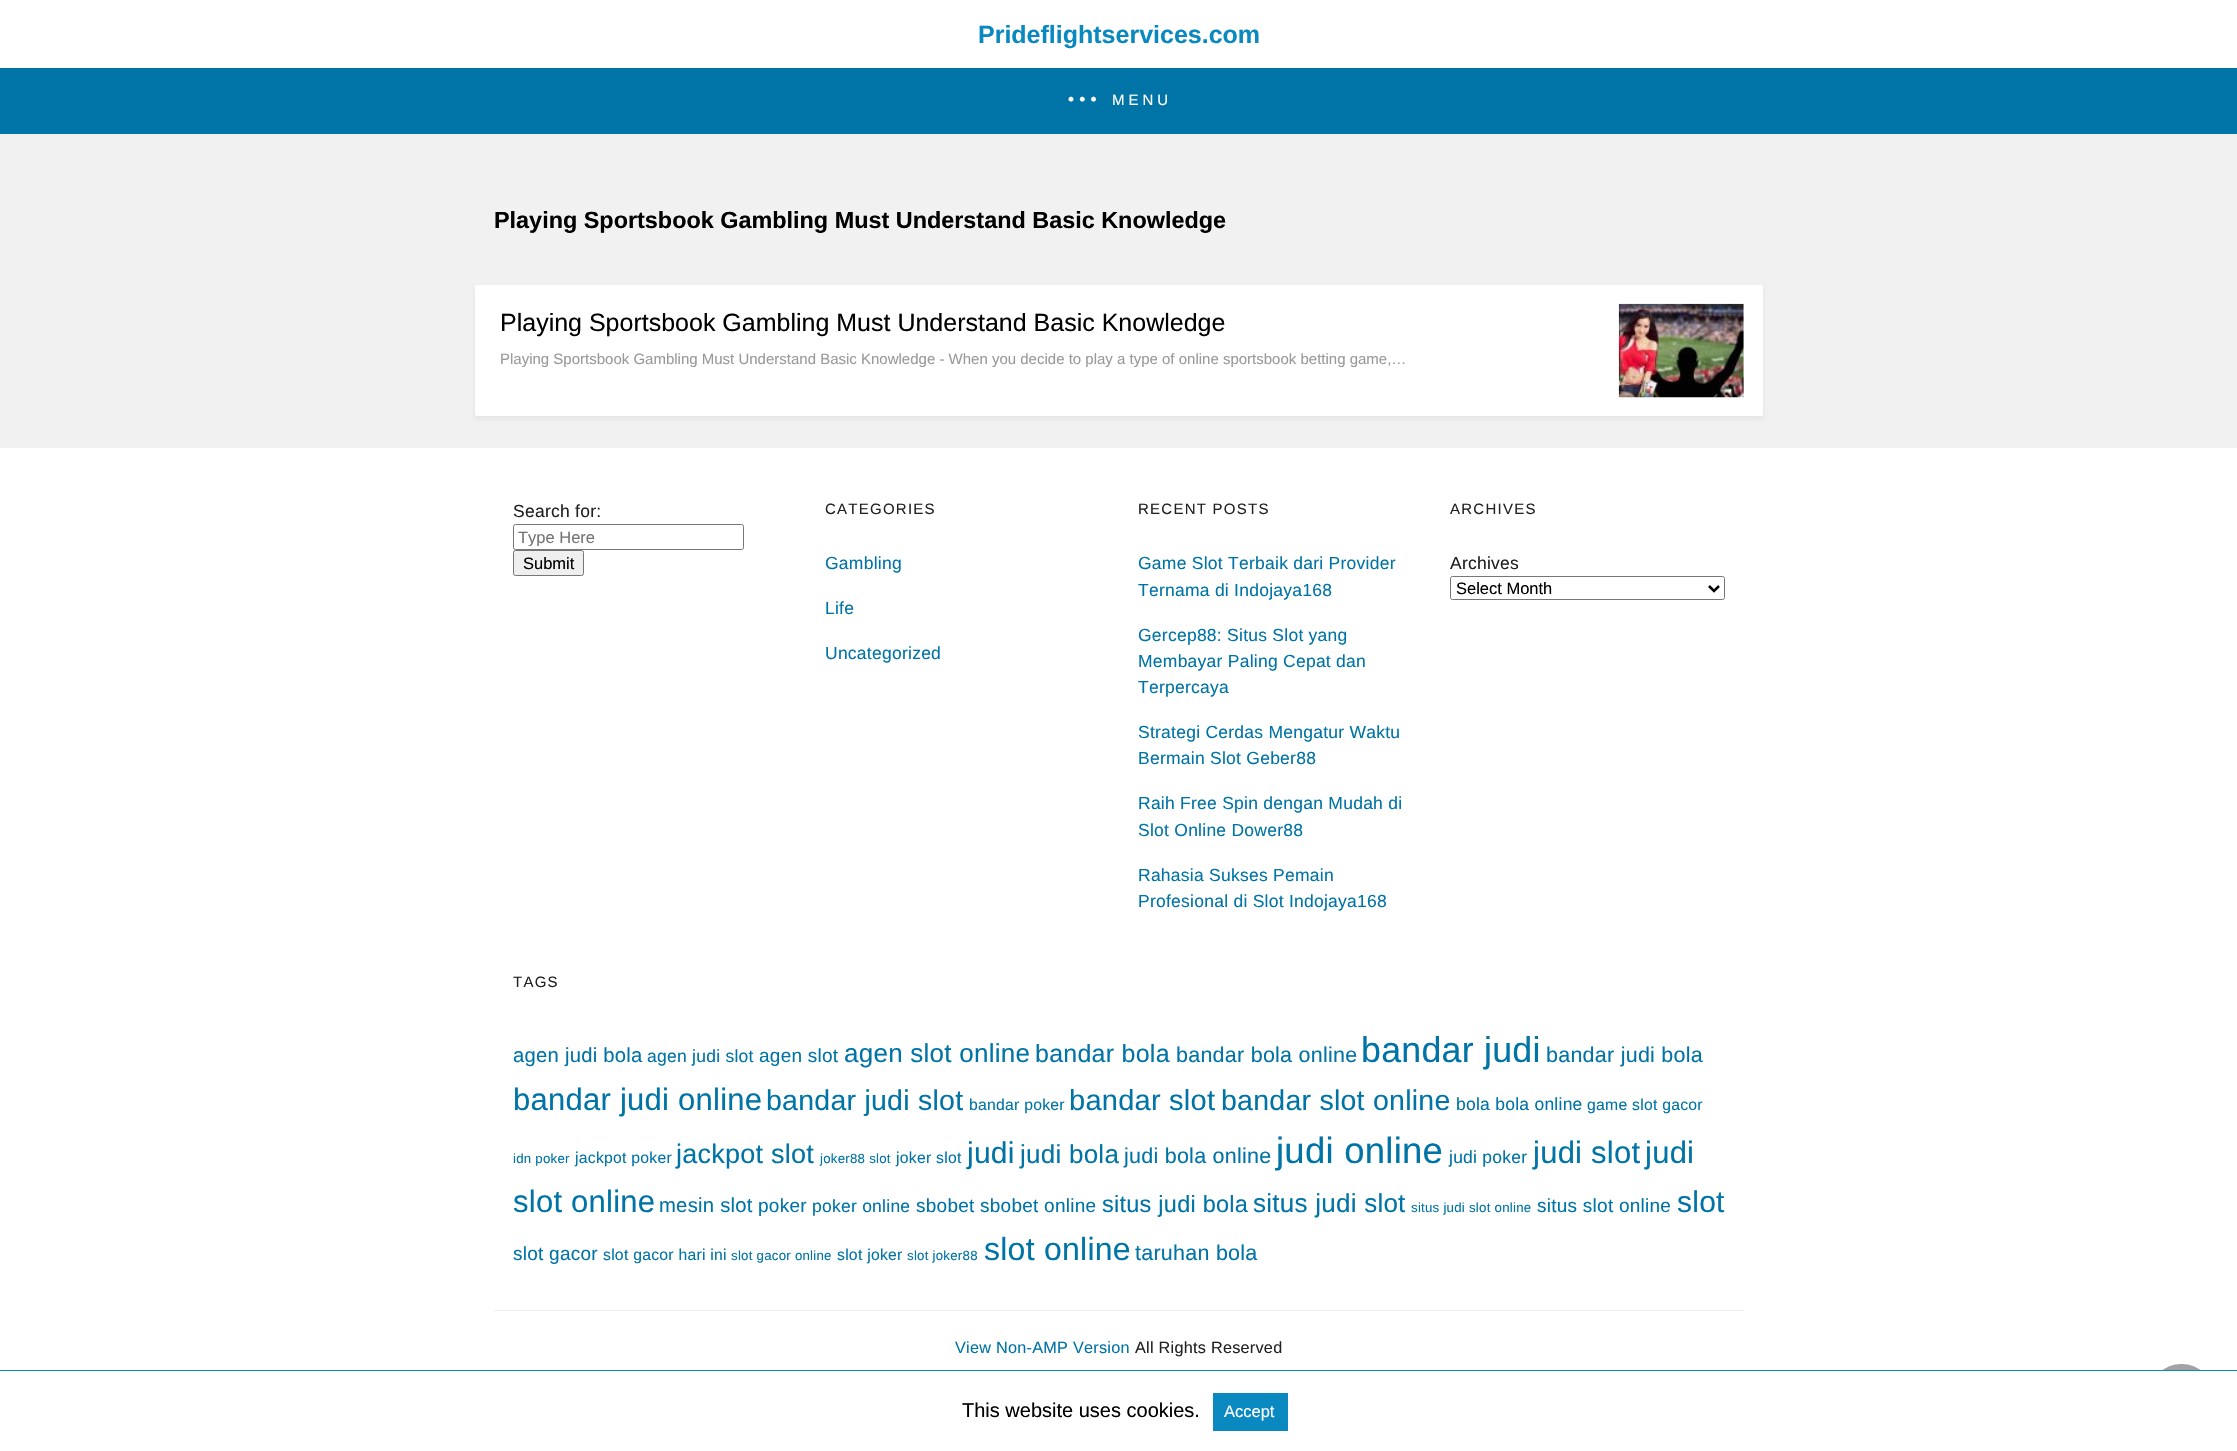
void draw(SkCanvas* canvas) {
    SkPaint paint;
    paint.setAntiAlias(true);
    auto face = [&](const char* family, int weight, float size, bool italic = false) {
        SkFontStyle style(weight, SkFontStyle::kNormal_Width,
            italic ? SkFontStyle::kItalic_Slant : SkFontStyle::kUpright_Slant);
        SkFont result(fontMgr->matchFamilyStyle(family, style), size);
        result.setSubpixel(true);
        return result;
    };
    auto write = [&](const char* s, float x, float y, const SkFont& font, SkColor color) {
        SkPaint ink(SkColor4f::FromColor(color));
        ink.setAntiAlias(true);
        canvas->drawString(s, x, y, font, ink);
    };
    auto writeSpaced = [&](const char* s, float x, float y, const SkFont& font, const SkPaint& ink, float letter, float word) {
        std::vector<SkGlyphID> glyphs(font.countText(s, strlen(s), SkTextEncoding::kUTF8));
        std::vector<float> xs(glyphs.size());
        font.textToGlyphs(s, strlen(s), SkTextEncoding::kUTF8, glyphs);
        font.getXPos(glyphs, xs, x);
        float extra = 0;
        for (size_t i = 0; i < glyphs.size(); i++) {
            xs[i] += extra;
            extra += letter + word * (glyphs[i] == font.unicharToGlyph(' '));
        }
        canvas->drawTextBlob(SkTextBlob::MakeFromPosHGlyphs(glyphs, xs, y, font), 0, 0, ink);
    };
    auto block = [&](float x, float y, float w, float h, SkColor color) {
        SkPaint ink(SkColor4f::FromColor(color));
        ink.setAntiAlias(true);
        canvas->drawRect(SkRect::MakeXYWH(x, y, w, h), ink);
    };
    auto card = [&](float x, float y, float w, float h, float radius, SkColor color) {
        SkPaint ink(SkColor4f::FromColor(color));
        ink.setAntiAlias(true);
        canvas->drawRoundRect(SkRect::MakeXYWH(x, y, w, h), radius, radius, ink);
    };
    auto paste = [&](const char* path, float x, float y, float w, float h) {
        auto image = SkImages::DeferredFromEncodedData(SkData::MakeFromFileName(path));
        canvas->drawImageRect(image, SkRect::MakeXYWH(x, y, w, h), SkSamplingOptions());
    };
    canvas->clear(SkColorSetRGB(241, 241, 241));
    block(0, 0, 2237, 68, SK_ColorWHITE);
    auto kFont1 = face("Liberation Sans", 700, 25);
    write("Prideflightservices.com", 978, 43, kFont1, SkColorSetRGB(10, 137, 192));
    block(0, 68, 2237, 66, SkColorSetRGB(0, 116, 167));
    auto kFont2 = face("Liberation Serif", 400, 40);
    paint.setColor(SK_ColorWHITE);
    writeSpaced("...", 1066, 101, kFont2, paint, 1.25f, 0);
    auto kFont3 = face("Liberation Sans", 400, 15);
    writeSpaced("MENU", 1112, 105, kFont3, paint, 4, 0);
    auto kFont4 = face("Liberation Sans", 700, 23.4f);
    write("Playing Sportsbook Gambling Must Understand Basic Knowledge", 494, 228, kFont4, SK_ColorBLACK);
    paint.setColor(SkColorSetARGB(13, 0, 0, 0));
    paint.setMaskFilter(SkMaskFilter::MakeBlur(kNormal_SkBlurStyle, 2));
    canvas->drawRoundRect(SkRect::MakeXYWH(475, 288, 1288, 131), 2.5f, 2.5f, paint);
    paint.setMaskFilter(nullptr);
    card(475, 285, 1288, 131, 2.5f, SK_ColorWHITE);
    auto kFont5 = face("Liberation Sans", 400, 25);
    write("Playing Sportsbook Gambling Must Understand Basic Knowledge", 500, 331, kFont5, SK_ColorBLACK);
    write("Playing Sportsbook Gambling Must Understand Basic Knowledge - When you decide to play a type of online sportsbook betting game,…", 500, 364, kFont3, SkColorSetRGB(153, 153, 153));
    paste("pic1.png", 1618, 303, 126, 95);
    block(0, 448, 2237, 922, SK_ColorWHITE);
    block(494, 1310, 1250, 1, SkColorSetRGB(238, 238, 238));
    auto kFont6 = face("Liberation Sans", 400, 17.5f);
    paint.setColor(SkColorSetRGB(34, 34, 34));
    writeSpaced("Search for:", 513, 517, kFont6, paint, 0.25f, 0);
    paint.setStyle(SkPaint::kStroke_Style);
    paint.setStrokeWidth(1);
    paint.setColor(SkColorSetRGB(118, 118, 118));
    canvas->drawRoundRect(SkRect::MakeXYWH(513.5f, 524.5f, 230, 25), 2, 2, paint);
    canvas->save();
    canvas->clipRect(SkRect::MakeXYWH(518, 528, 221, 18));
    auto kFont7 = face("Liberation Sans", 400, 16.5f);
    write("Type Here", 518, 543, kFont7, SkColorSetRGB(117, 117, 117));
    canvas->restore();
    paint.setStyle(SkPaint::kFill_Style);
    paint.setColor(SkColorSetRGB(239, 239, 239));
    canvas->drawRoundRect(SkRect::MakeXYWH(513.5f, 550.5f, 70, 25), 2, 2, paint);
    paint.setStyle(SkPaint::kStroke_Style);
    paint.setColor(SkColorSetRGB(118, 118, 118));
    canvas->drawRoundRect(SkRect::MakeXYWH(513.5f, 550.5f, 70, 25), 2, 2, paint);
    write("Submit", 523, 569, kFont7, SK_ColorBLACK);
    paint.setStyle(SkPaint::kFill_Style);
    paint.setColor(SkColorSetRGB(34, 34, 34));
    writeSpaced("CATEGORIES", 825, 514, kFont3, paint, 1.25f, 0);
    paint.setColor(SkColorSetRGB(0, 116, 167));
    writeSpaced("Gambling", 825, 569, kFont6, paint, 0.25f, 0);
    writeSpaced("Life", 825, 614, kFont6, paint, 0.25f, 0);
    writeSpaced("Uncategorized", 825, 659, kFont6, paint, 0.25f, 0);
    paint.setColor(SkColorSetRGB(34, 34, 34));
    writeSpaced("RECENT POSTS", 1138, 514, kFont3, paint, 1.25f, 0);
    paint.setColor(SkColorSetRGB(0, 116, 167));
    writeSpaced("Game Slot Terbaik dari Provider", 1138, 569, kFont6, paint, 0.25f, 0);
    writeSpaced("Ternama di Indojaya168", 1138, 596, kFont6, paint, 0.25f, 0);
    writeSpaced("Gercep88: Situs Slot yang", 1138, 641, kFont6, paint, 0.25f, 0);
    writeSpaced("Membayar Paling Cepat dan", 1138, 667, kFont6, paint, 0.25f, 0);
    writeSpaced("Terpercaya", 1138, 693, kFont6, paint, 0.25f, 0);
    writeSpaced("Strategi Cerdas Mengatur Waktu", 1138, 738, kFont6, paint, 0.25f, 0);
    writeSpaced("Bermain Slot Geber88", 1138, 764, kFont6, paint, 0.25f, 0);
    writeSpaced("Raih Free Spin dengan Mudah di", 1138, 809, kFont6, paint, 0.25f, 0);
    writeSpaced("Slot Online Dower88", 1138, 836, kFont6, paint, 0.25f, 0);
    writeSpaced("Rahasia Sukses Pemain", 1138, 881, kFont6, paint, 0.25f, 0);
    writeSpaced("Profesional di Slot Indojaya168", 1138, 907, kFont6, paint, 0.25f, 0);
    paint.setColor(SkColorSetRGB(34, 34, 34));
    writeSpaced("ARCHIVES", 1450, 514, kFont3, paint, 1.25f, 0);
    writeSpaced("Archives", 1450, 569, kFont6, paint, 0.25f, 0);
    paint.setStyle(SkPaint::kStroke_Style);
    paint.setColor(SkColorSetRGB(118, 118, 118));
    canvas->drawRoundRect(SkRect::MakeXYWH(1450.5f, 576.5f, 274, 23), 2, 2, paint);
    paint.setStrokeWidth(2.5f);
    paint.setColor(SK_ColorBLACK);
    canvas->drawPath(SkPathBuilder().moveTo(1709, 586).lineTo(1714, 591).lineTo(1719, 586).detach(), paint);
    write("Select Month", 1456, 594, kFont7, SK_ColorBLACK);
    paint.setStyle(SkPaint::kFill_Style);
    paint.setColor(SkColorSetRGB(34, 34, 34));
    writeSpaced("TAGS", 513, 987, kFont3, paint, 1.25f, 0);
    auto kFont8 = face("Liberation Sans", 400, 20.25f);
    paint.setColor(SkColorSetRGB(0, 116, 167));
    writeSpaced("agen judi bola", 513, 1062, kFont8, paint, 0.25f, 0);
    writeSpaced("agen judi slot", 647, 1062, kFont6, paint, 0.25f, 0);
    auto kFont9 = face("Liberation Sans", 400, 19);
    writeSpaced("agen slot", 759, 1062, kFont9, paint, 0.25f, 0);
    auto kFont10 = face("Liberation Sans", 400, 26);
    writeSpaced("agen slot online", 844, 1062, kFont10, paint, 0.25f, 0);
    writeSpaced("bandar bola", 1035, 1062, kFont5, paint, 0.25f, 0);
    auto kFont11 = face("Liberation Sans", 400, 21.5f);
    writeSpaced("bandar bola online", 1176, 1062, kFont11, paint, 0.25f, 0);
    auto kFont12 = face("Liberation Sans", 400, 35.75f);
    writeSpaced("bandar judi", 1361, 1062, kFont12, paint, 0.25f, 0);
    writeSpaced("bandar judi bola", 1546, 1062, kFont11, paint, 0.25f, 0);
    auto kFont13 = face("Liberation Sans", 400, 31);
    writeSpaced("bandar judi online", 513, 1110, kFont13, paint, 0.25f, 0);
    auto kFont14 = face("Liberation Sans", 400, 28.5f);
    writeSpaced("bandar judi slot", 766, 1110, kFont14, paint, 0.25f, 0);
    auto kFont15 = face("Liberation Sans", 400, 15.75f);
    writeSpaced("bandar poker", 969, 1110, kFont15, paint, 0.25f, 0);
    auto kFont16 = face("Liberation Sans", 400, 29);
    writeSpaced("bandar slot", 1069, 1110, kFont16, paint, 0.25f, 0);
    writeSpaced("bandar slot online", 1221, 1110, kFont14, paint, 0.25f, 0);
    writeSpaced("bola bola online", 1456, 1110, kFont6, paint, 0.25f, 0);
    writeSpaced("game slot gacor", 1587, 1110, kFont15, paint, 0.25f, 0);
    auto kFont17 = face("Liberation Sans", 400, 13.25f);
    writeSpaced("idn poker", 513, 1163, kFont17, paint, 0.25f, 0);
    writeSpaced("jackpot poker", 575, 1163, kFont15, paint, 0.25f, 0);
    auto kFont18 = face("Liberation Sans", 400, 27);
    writeSpaced("jackpot slot", 676, 1163, kFont18, paint, 0.25f, 0);
    writeSpaced("joker88 slot", 820, 1163, kFont17, paint, 0.25f, 0);
    writeSpaced("joker slot", 896, 1163, kFont15, paint, 0.25f, 0);
    auto kFont19 = face("Liberation Sans", 400, 30);
    writeSpaced("judi", 967, 1163, kFont19, paint, 0.25f, 0);
    writeSpaced("judi bola", 1020, 1163, kFont10, paint, 0.25f, 0);
    writeSpaced("judi bola online", 1124, 1163, kFont11, paint, 0.25f, 0);
    auto kFont20 = face("Liberation Sans", 400, 36.5f);
    writeSpaced("judi online", 1276, 1163, kFont20, paint, 0.25f, 0);
    writeSpaced("judi poker", 1449, 1163, kFont6, paint, 0.25f, 0);
    writeSpaced("judi slot", 1533, 1163, kFont13, paint, 0.25f, 0);
    writeSpaced("judi", 1645, 1163, kFont13, paint, 0.25f, 0);
    writeSpaced("slot online", 513, 1212, kFont13, paint, 0.25f, 0);
    writeSpaced("mesin slot", 659, 1212, kFont8, paint, 0.25f, 0);
    writeSpaced("poker", 758, 1212, kFont9, paint, 0.25f, 0);
    writeSpaced("poker online", 812, 1212, kFont6, paint, 0.25f, 0);
    writeSpaced("sbobet", 916, 1212, kFont9, paint, 0.25f, 0);
    writeSpaced("sbobet online", 980, 1212, kFont9, paint, 0.25f, 0);
    auto kFont21 = face("Liberation Sans", 400, 23.5f);
    writeSpaced("situs judi bola", 1102, 1212, kFont21, paint, 0.25f, 0);
    writeSpaced("situs judi slot", 1253, 1212, kFont10, paint, 0.25f, 0);
    writeSpaced("situs judi slot online", 1411, 1212, kFont17, paint, 0.25f, 0);
    writeSpaced("situs slot online", 1537, 1212, kFont9, paint, 0.25f, 0);
    writeSpaced("slot", 1677, 1212, kFont19, paint, 0.25f, 0);
    writeSpaced("slot gacor", 513, 1260, kFont9, paint, 0.25f, 0);
    writeSpaced("slot gacor hari ini", 603, 1260, kFont15, paint, 0.25f, 0);
    writeSpaced("slot gacor online", 731, 1260, kFont17, paint, 0.25f, 0);
    writeSpaced("slot joker", 837, 1260, kFont15, paint, 0.25f, 0);
    writeSpaced("slot joker88", 907, 1260, kFont17, paint, 0.25f, 0);
    auto kFont22 = face("Liberation Sans", 400, 32);
    writeSpaced("slot online", 984, 1260, kFont22, paint, 0.25f, 0);
    writeSpaced("taruhan bola", 1135, 1260, kFont11, paint, 0.25f, 0);
    auto kFont23 = face("Liberation Sans", 400, 16.25f);
    writeSpaced("View Non-AMP Version", 955, 1353, kFont23, paint, 0.25f, 0);
    paint.setColor(SkColorSetRGB(34, 34, 34));
    writeSpaced("All Rights Reserved", 1135, 1353, kFont23, paint, 0.25f, 0);
    card(2150, 1364, 63, 62, 31, SkColorSetARGB(128, 71, 71, 71));
    block(0, 1371, 2237, 80, SK_ColorWHITE);
    block(0, 1370, 2237, 1, SkColorSetRGB(10, 137, 192));
    auto kFont24 = face("Liberation Sans", 400, 20);
    write("This website uses cookies.", 962, 1417, kFont24, SK_ColorBLACK);
    block(1213, 1393, 75, 38, SkColorSetRGB(10, 137, 192));
    write("Accept", 1224, 1417, kFont7, SK_ColorWHITE);
}
